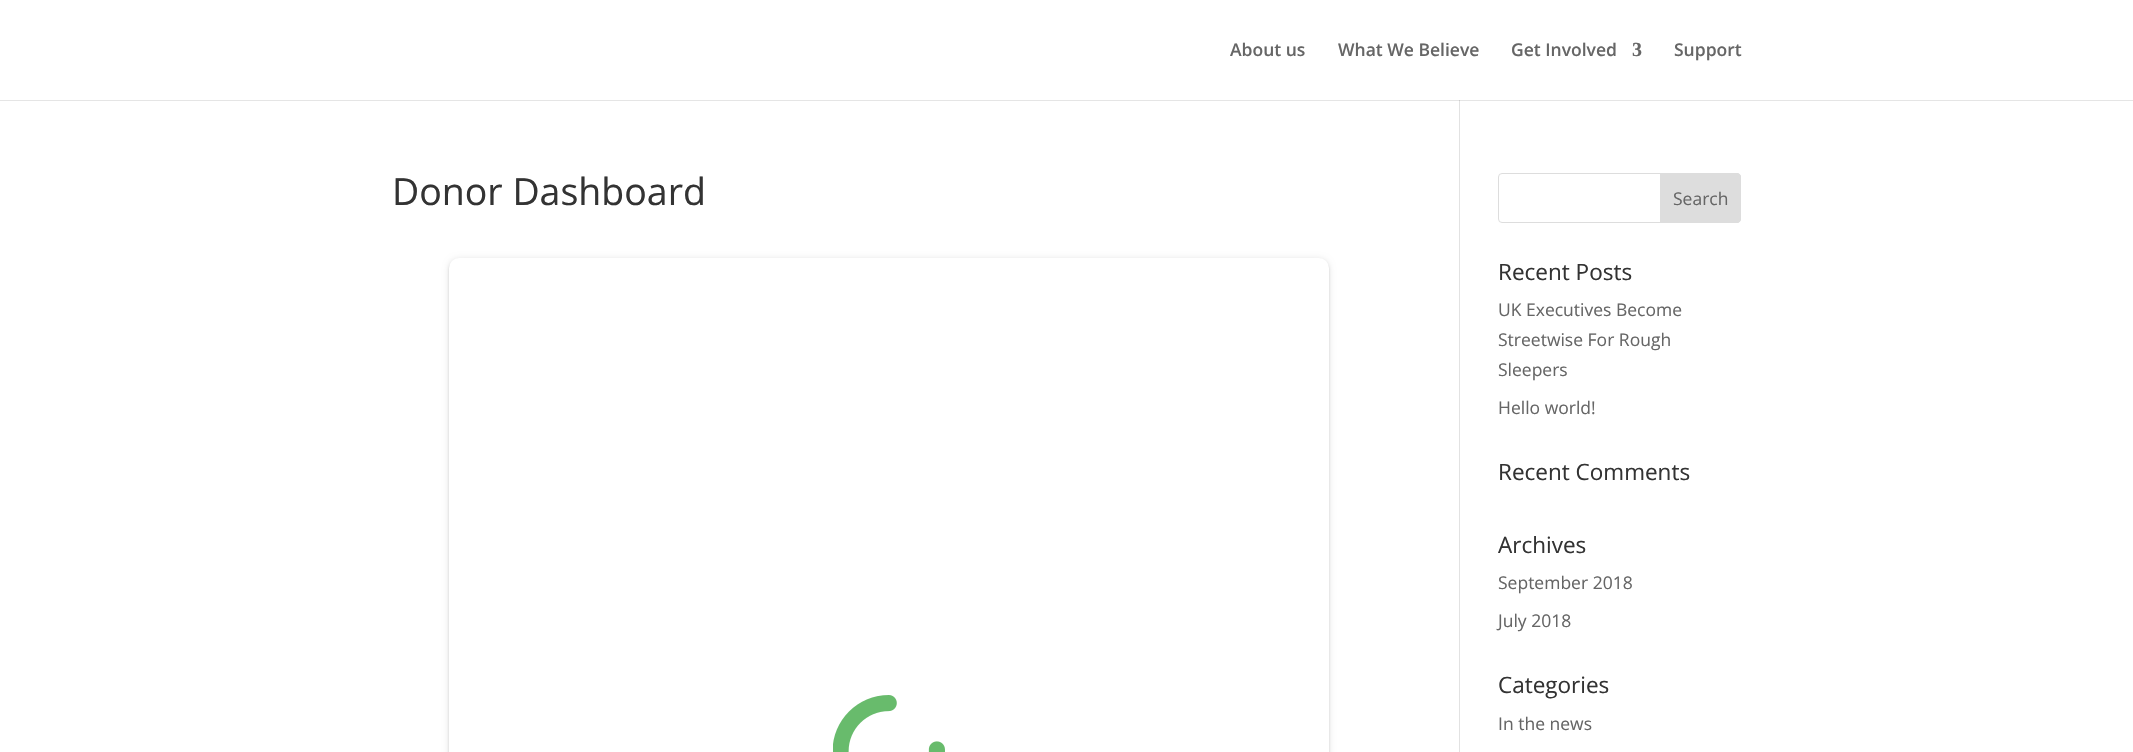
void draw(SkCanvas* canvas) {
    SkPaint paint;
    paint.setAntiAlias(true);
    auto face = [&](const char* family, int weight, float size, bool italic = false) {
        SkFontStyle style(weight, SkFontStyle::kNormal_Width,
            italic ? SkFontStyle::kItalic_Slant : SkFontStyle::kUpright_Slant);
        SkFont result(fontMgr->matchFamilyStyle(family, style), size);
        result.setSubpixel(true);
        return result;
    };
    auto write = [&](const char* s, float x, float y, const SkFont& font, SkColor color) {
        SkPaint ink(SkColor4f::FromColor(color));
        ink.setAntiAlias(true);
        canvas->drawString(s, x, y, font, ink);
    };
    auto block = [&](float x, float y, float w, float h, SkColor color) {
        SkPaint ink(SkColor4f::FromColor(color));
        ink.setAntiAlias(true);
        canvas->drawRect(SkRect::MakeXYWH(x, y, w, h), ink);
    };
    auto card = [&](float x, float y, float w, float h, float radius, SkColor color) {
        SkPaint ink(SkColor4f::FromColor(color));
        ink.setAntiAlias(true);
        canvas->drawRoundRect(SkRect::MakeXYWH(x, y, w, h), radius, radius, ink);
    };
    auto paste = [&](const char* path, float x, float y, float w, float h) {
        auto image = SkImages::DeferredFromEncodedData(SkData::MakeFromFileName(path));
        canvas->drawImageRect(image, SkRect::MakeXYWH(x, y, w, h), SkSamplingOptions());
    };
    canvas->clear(SK_ColorWHITE);
    block(1459, 100, 1, 652, SkColorSetRGB(226, 226, 226));
    paint.setColor(SkColorSetARGB(26, 0, 0, 0));
    canvas->drawPath(SkPathBuilder().moveTo(0, 100).lineTo(0, 101).lineTo(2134, 101).lineTo(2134, 1).lineTo(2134, 100).close().detach(), paint);
    auto kFont1 = face("Open Sans", 600, 17.5f);
    write("About us", 1230, 56, kFont1, SkColorSetRGB(102, 102, 102));
    write("What We Believe", 1338, 56, kFont1, SkColorSetRGB(102, 102, 102));
    write("Get Involved", 1511, 56, kFont1, SkColorSetRGB(102, 102, 102));
    auto kFont2 = face("Liberation Serif", 700, 20);
    write("3", 1632, 56, kFont2, SkColorSetRGB(102, 102, 102));
    write("Support", 1674, 56, kFont1, SkColorSetRGB(102, 102, 102));
    auto kFont3 = face("Open Sans", 400, 37.5f);
    write("Donor Dashboard", 392, 205, kFont3, SkColorSetRGB(51, 51, 51));
    paint.setColor(SkColorSetARGB(31, 0, 0, 0));
    paint.setMaskFilter(SkMaskFilter::MakeBlur(kNormal_SkBlurStyle, 3));
    canvas->drawRoundRect(SkRect::MakeXYWH(449, 259, 880, 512), 10, 10, paint);
    paint.setMaskFilter(nullptr);
    paint.setColor(SkColorSetARGB(36, 0, 0, 0));
    paint.setMaskFilter(SkMaskFilter::MakeBlur(kNormal_SkBlurStyle, 1));
    canvas->drawRoundRect(SkRect::MakeXYWH(449, 260, 880, 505), 10, 10, paint);
    paint.setMaskFilter(nullptr);
    card(449, 258, 880, 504, 10, SK_ColorWHITE);
    paste("pic1.png", 833, 695, 112, 57);
    paint.setStyle(SkPaint::kStroke_Style);
    paint.setStrokeWidth(1);
    paint.setColor(SkColorSetRGB(221, 221, 221));
    canvas->drawRoundRect(SkRect::MakeXYWH(1498.5f, 173.5f, 242, 49), 3.5f, 3.5f, paint);
    paint.setStyle(SkPaint::kFill_Style);
    canvas->drawPath(SkPathBuilder().moveTo(1660.5f, 173.5f).lineTo(1737, 173.5f).cubicTo(1739, 173.5f, 1740.5f, 175, 1740.5f, 177).lineTo(1740.5f, 219).cubicTo(1740.5f, 221, 1739, 222.5f, 1737, 222.5f).lineTo(1660.5f, 222.5f).close().detach(), paint);
    paint.setStyle(SkPaint::kStroke_Style);
    canvas->drawPath(SkPathBuilder().moveTo(1660.5f, 173.5f).lineTo(1737, 173.5f).cubicTo(1739, 173.5f, 1740.5f, 175, 1740.5f, 177).lineTo(1740.5f, 219).cubicTo(1740.5f, 221, 1739, 222.5f, 1737, 222.5f).lineTo(1660.5f, 222.5f).close().detach(), paint);
    auto kFont4 = face("Open Sans", 400, 17.5f);
    write("Search", 1673, 205, kFont4, SkColorSetRGB(102, 102, 102));
    auto kFont5 = face("Open Sans", 400, 22.5f);
    write("Recent Posts", 1498, 280, kFont5, SkColorSetRGB(51, 51, 51));
    write("UK Executives Become", 1498, 316, kFont4, SkColorSetRGB(102, 102, 102));
    write("Streetwise For Rough", 1498, 346, kFont4, SkColorSetRGB(102, 102, 102));
    write("Sleepers", 1498, 376, kFont4, SkColorSetRGB(102, 102, 102));
    write("Hello world!", 1498, 414, kFont4, SkColorSetRGB(102, 102, 102));
    write("Recent Comments", 1498, 480, kFont5, SkColorSetRGB(51, 51, 51));
    write("Archives", 1498, 553, kFont5, SkColorSetRGB(51, 51, 51));
    write("September 2018", 1498, 589, kFont4, SkColorSetRGB(102, 102, 102));
    write("July 2018", 1498, 627, kFont4, SkColorSetRGB(102, 102, 102));
    write("Categories", 1498, 693, kFont5, SkColorSetRGB(51, 51, 51));
    write("In the news", 1498, 730, kFont4, SkColorSetRGB(102, 102, 102));
}
